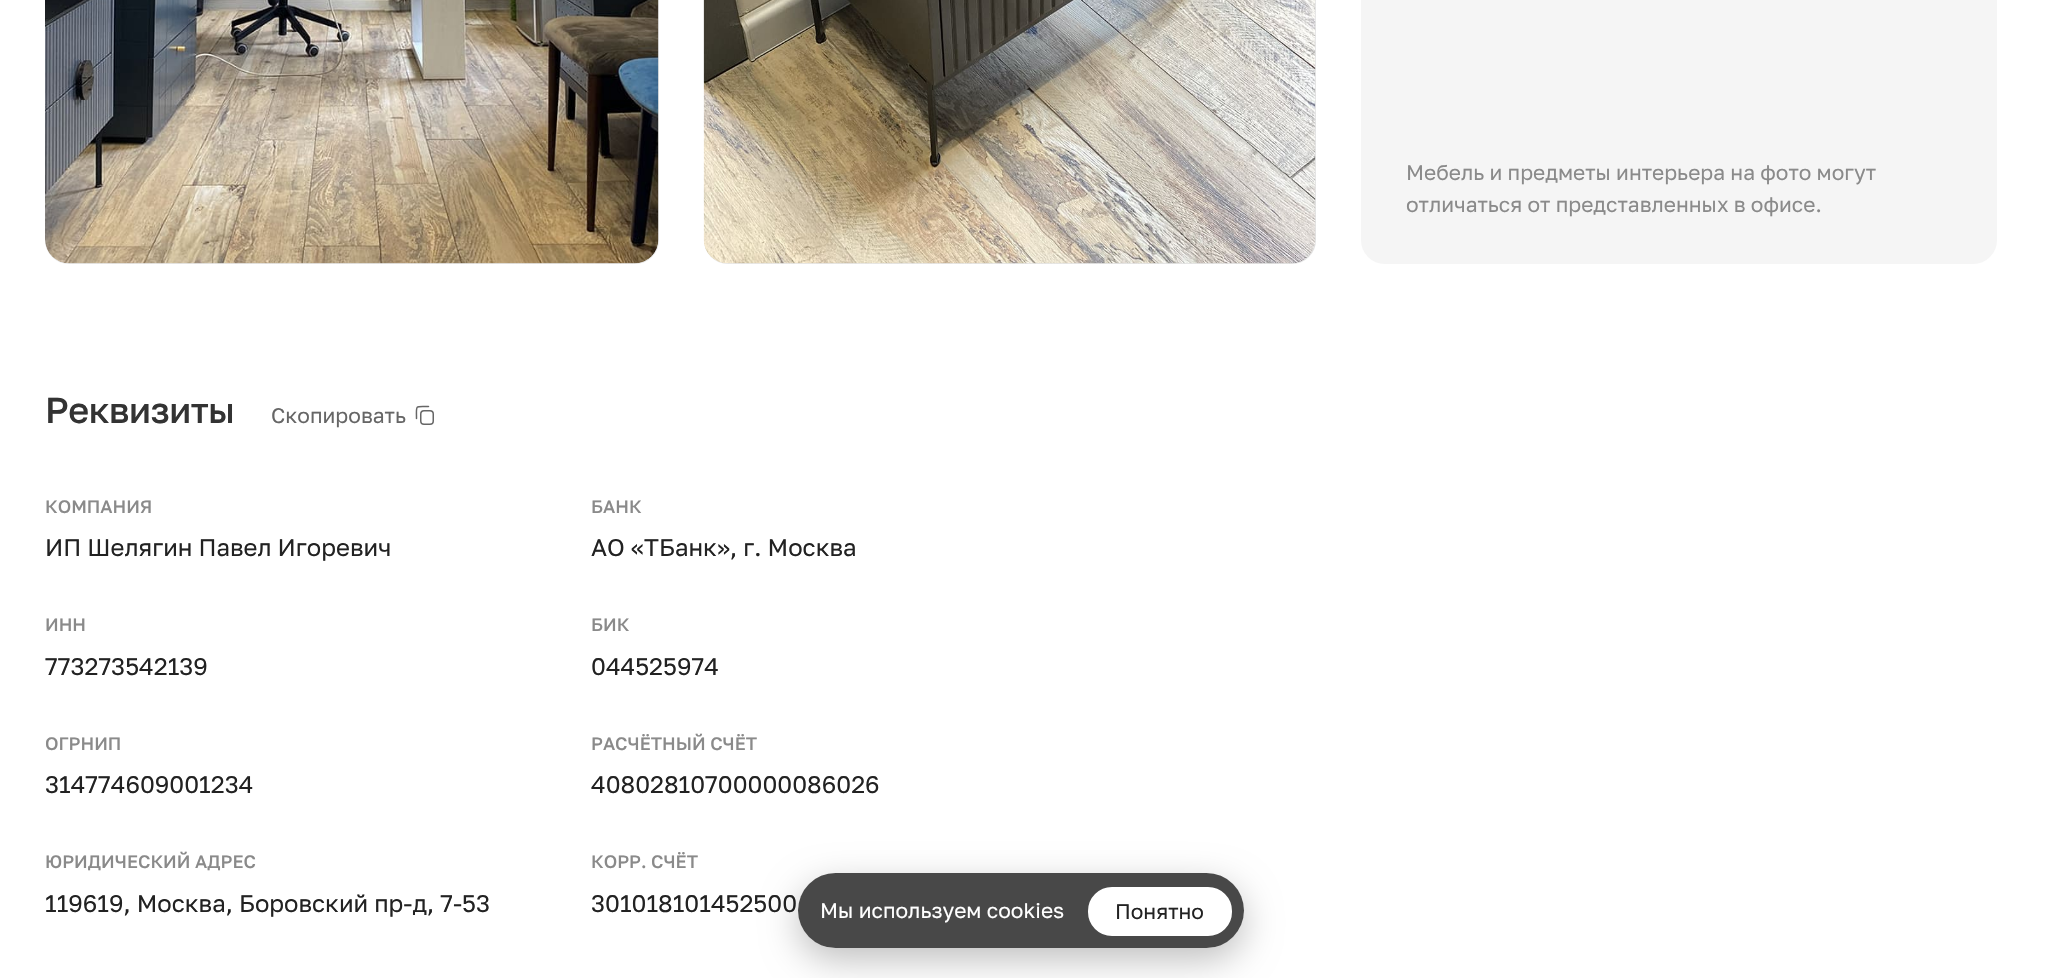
void draw(SkCanvas* canvas) {
    SkPaint paint;
    paint.setAntiAlias(true);
    auto face = [&](const char* family, int weight, float size, bool italic = false) {
        SkFontStyle style(weight, SkFontStyle::kNormal_Width,
            italic ? SkFontStyle::kItalic_Slant : SkFontStyle::kUpright_Slant);
        SkFont result(fontMgr->matchFamilyStyle(family, style), size);
        result.setSubpixel(true);
        return result;
    };
    auto write = [&](const char* s, float x, float y, const SkFont& font, SkColor color) {
        SkPaint ink(SkColor4f::FromColor(color));
        ink.setAntiAlias(true);
        canvas->drawString(s, x, y, font, ink);
    };
    auto writeSpaced = [&](const char* s, float x, float y, const SkFont& font, const SkPaint& ink, float letter, float word) {
        std::vector<SkGlyphID> glyphs(font.countText(s, strlen(s), SkTextEncoding::kUTF8));
        std::vector<float> xs(glyphs.size());
        font.textToGlyphs(s, strlen(s), SkTextEncoding::kUTF8, glyphs);
        font.getXPos(glyphs, xs, x);
        float extra = 0;
        for (size_t i = 0; i < glyphs.size(); i++) {
            xs[i] += extra;
            extra += letter + word * (glyphs[i] == font.unicharToGlyph(' '));
        }
        canvas->drawTextBlob(SkTextBlob::MakeFromPosHGlyphs(glyphs, xs, y, font), 0, 0, ink);
    };
    auto card = [&](float x, float y, float w, float h, float radius, SkColor color) {
        SkPaint ink(SkColor4f::FromColor(color));
        ink.setAntiAlias(true);
        canvas->drawRoundRect(SkRect::MakeXYWH(x, y, w, h), radius, radius, ink);
    };
    auto paste = [&](const char* path, float x, float y, float w, float h) {
        auto image = SkImages::DeferredFromEncodedData(SkData::MakeFromFileName(path));
        canvas->drawImageRect(image, SkRect::MakeXYWH(x, y, w, h), SkSamplingOptions());
    };
    canvas->clear(SK_ColorWHITE);
    {
        const SkColor colors[] = {SkColorSetRGB(237, 237, 237), SkColorSetRGB(227, 227, 227)};
        const float stops[] = {0, 1};
        const SkPoint ends[] = {{-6, -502}, {710, 213}};
        paint.setShader(SkGradientShader::MakeLinear(ends, colors, stops, 2, SkTileMode::kClamp));
        paint.setAlpha(255);
    }
    canvas->drawRoundRect(SkRect::MakeXYWH(45, -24, 614, 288), 24, 24, paint);
    paste("pic1.png", 45, 0, 614, 264);
    {
        const SkColor colors[] = {SkColorSetRGB(237, 237, 237), SkColorSetRGB(227, 227, 227)};
        const float stops[] = {0, 1};
        const SkPoint ends[] = {{652, -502}, {1367, 213}};
        paint.setShader(SkGradientShader::MakeLinear(ends, colors, stops, 2, SkTileMode::kClamp));
        paint.setAlpha(255);
    }
    canvas->drawRoundRect(SkRect::MakeXYWH(704, -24, 612, 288), 24, 24, paint);
    paste("pic2.png", 703, 0, 613, 264);
    card(1361, -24, 636, 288, 24, SkColorSetRGB(245, 245, 245));
    auto kFont1 = face("Golos Text", 400, 21);
    write("Мебель и предметы интерьера на фото могут", 1406, 180, kFont1, SkColorSetRGB(138, 138, 138));
    write("отличаться от представленных в офисе.", 1406, 212, kFont1, SkColorSetRGB(138, 138, 138));
    auto kFont2 = face("Golos Text", 500, 36);
    paint.setShader(nullptr);
    paint.setColor(SkColorSetRGB(51, 51, 51));
    writeSpaced("Реквизиты", 45, 423, kFont2, paint, -0.5f, 0);
    write("Скопировать", 271, 423, kFont1, SkColorSetRGB(102, 102, 102));
    paint.setStyle(SkPaint::kStroke_Style);
    paint.setStrokeWidth(1.5f);
    paint.setStrokeCap(SkPaint::kRound_Cap);
    paint.setStrokeJoin(SkPaint::kRound_Join);
    paint.setColor(SkColorSetRGB(102, 102, 102));
    canvas->drawPath(SkPathBuilder().moveTo(428.5f, 406.5f).cubicTo(414.5f, 406.5f, 416.5f, 404.5f, 416.5f, 418.5f).detach(), paint);
    paint.setStrokeCap(SkPaint::kButt_Cap);
    paint.setStrokeJoin(SkPaint::kMiter_Join);
    canvas->drawRoundRect(SkRect::MakeXYWH(420.75f, 410.75f, 12.5f, 13.5f), 3.25f, 3.25f, paint);
    auto kFont3 = face("Golos Text", 500, 18);
    write("КОМПАНИЯ", 45, 513, kFont3, SkColorSetRGB(138, 138, 138));
    auto kFont4 = face("Golos Text", 400, 24);
    write("ИП Шелягин Павел Игоревич", 45, 556, kFont4, SkColorSetRGB(34, 34, 34));
    write("БАНК", 591, 513, kFont3, SkColorSetRGB(138, 138, 138));
    write("АО «ТБанк», г. Москва", 591, 556, kFont4, SkColorSetRGB(34, 34, 34));
    write("ИНН", 45, 631, kFont3, SkColorSetRGB(138, 138, 138));
    write("773273542139", 45, 675, kFont4, SkColorSetRGB(34, 34, 34));
    write("БИК", 591, 631, kFont3, SkColorSetRGB(138, 138, 138));
    write("044525974", 591, 675, kFont4, SkColorSetRGB(34, 34, 34));
    write("ОГРНИП", 45, 750, kFont3, SkColorSetRGB(138, 138, 138));
    write("314774609001234", 45, 793, kFont4, SkColorSetRGB(34, 34, 34));
    write("РАСЧЁТНЫЙ СЧЁТ", 591, 750, kFont3, SkColorSetRGB(138, 138, 138));
    write("40802810700000086026", 591, 793, kFont4, SkColorSetRGB(34, 34, 34));
    write("ЮРИДИЧЕСКИЙ АДРЕС", 45, 868, kFont3, SkColorSetRGB(138, 138, 138));
    write("119619, Москва, Боровский пр-д, 7-53", 45, 912, kFont4, SkColorSetRGB(34, 34, 34));
    write("КОРР. СЧЁТ", 591, 868, kFont3, SkColorSetRGB(138, 138, 138));
    write("301018101452500", 591, 912, kFont4, SkColorSetRGB(34, 34, 34));
    canvas->save();
    canvas->clipPath(SkPathBuilder(SkPathFillType::kEvenOdd).moveTo(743, 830).lineTo(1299, 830).lineTo(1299, 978).lineTo(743, 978).close().moveTo(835.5f, 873).lineTo(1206.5f, 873).cubicTo(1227, 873, 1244, 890, 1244, 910.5f).cubicTo(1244, 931, 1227, 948, 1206.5f, 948).lineTo(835.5f, 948).cubicTo(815, 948, 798, 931, 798, 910.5f).cubicTo(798, 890, 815, 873, 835.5f, 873).close().detach(), true);
    paint.setStyle(SkPaint::kFill_Style);
    paint.setColor(SkColorSetARGB(64, 0, 0, 0));
    paint.setMaskFilter(SkMaskFilter::MakeBlur(kNormal_SkBlurStyle, 18));
    canvas->drawRoundRect(SkRect::MakeXYWH(798, 885, 446, 75), 37.5f, 37.5f, paint);
    paint.setMaskFilter(nullptr);
    canvas->restore();
    card(798, 873, 446, 75, 37.5f, SkColorSetARGB(199, 20, 20, 20));
    write("Мы используем cookies", 820, 918, kFont1, SK_ColorWHITE);
    paint.setColor(SK_ColorWHITE);
    canvas->drawRoundRect(SkRect::MakeXYWH(1089.5f, 888.5f, 141, 46), 22.5f, 22.5f, paint);
    paint.setStyle(SkPaint::kStroke_Style);
    paint.setStrokeWidth(3);
    canvas->drawRoundRect(SkRect::MakeXYWH(1089.5f, 888.5f, 141, 46), 22.5f, 22.5f, paint);
    write("Понятно", 1115, 919, kFont1, SkColorSetRGB(34, 34, 34));
}
